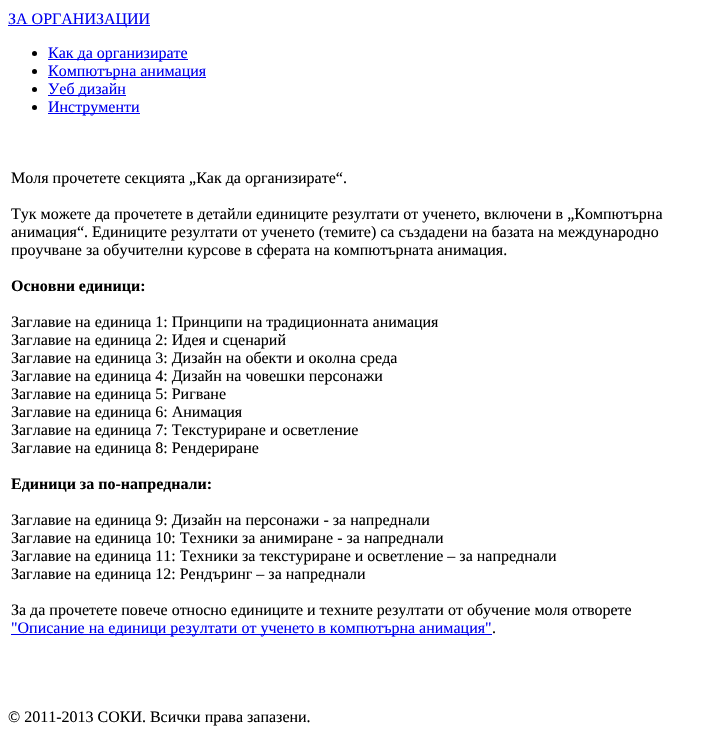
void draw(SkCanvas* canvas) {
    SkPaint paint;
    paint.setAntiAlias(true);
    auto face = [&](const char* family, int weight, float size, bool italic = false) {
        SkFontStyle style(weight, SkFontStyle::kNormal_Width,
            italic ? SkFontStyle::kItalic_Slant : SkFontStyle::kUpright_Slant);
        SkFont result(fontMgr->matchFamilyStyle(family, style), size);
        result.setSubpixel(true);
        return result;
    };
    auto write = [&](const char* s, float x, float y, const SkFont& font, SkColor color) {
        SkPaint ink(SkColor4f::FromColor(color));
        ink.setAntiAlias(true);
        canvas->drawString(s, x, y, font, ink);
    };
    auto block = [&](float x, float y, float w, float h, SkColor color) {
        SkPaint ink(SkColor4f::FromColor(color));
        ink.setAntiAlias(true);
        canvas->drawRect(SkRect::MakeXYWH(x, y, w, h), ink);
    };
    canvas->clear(SK_ColorWHITE);
    block(8, 25, 142, 1, SkColorSetRGB(0, 0, 238));
    auto kFont1 = face("Liberation Serif", 400, 16);
    write("ЗА ОРГАНИЗАЦИИ", 8, 24, kFont1, SkColorSetRGB(0, 0, 238));
    paint.setColor(SK_ColorBLACK);
    canvas->drawCircle(34.5f, 53.5f, 2.5f, paint);
    block(48, 59, 140, 1, SkColorSetRGB(0, 0, 238));
    write("Как да организирате", 48, 58, kFont1, SkColorSetRGB(0, 0, 238));
    canvas->drawCircle(34.5f, 71.5f, 2.5f, paint);
    block(48, 77, 158, 1, SkColorSetRGB(0, 0, 238));
    write("Компютърна анимация", 48, 76, kFont1, SkColorSetRGB(0, 0, 238));
    canvas->drawCircle(34.5f, 89.5f, 2.5f, paint);
    block(48, 95, 78, 1, SkColorSetRGB(0, 0, 238));
    write("Уеб дизайн", 48, 94, kFont1, SkColorSetRGB(0, 0, 238));
    canvas->drawCircle(34.5f, 107.5f, 2.5f, paint);
    block(48, 113, 92, 1, SkColorSetRGB(0, 0, 238));
    write("Инструменти", 48, 112, kFont1, SkColorSetRGB(0, 0, 238));
    write("Моля прочетете секцията „Как да организирате“.", 11, 183, kFont1, SK_ColorBLACK);
    write("Тук можете да прочетете в детайли единиците резултати от ученето, включени в „Компютърна", 11, 219, kFont1, SK_ColorBLACK);
    write("анимация“. Единиците резултати от ученето (темите) са създадени на базата на международно", 11, 237, kFont1, SK_ColorBLACK);
    write("проучване за обучителни курсове в сферата на компютърната анимация.", 11, 255, kFont1, SK_ColorBLACK);
    auto kFont2 = face("Liberation Serif", 700, 16);
    write("Основни единици:", 11, 291, kFont2, SK_ColorBLACK);
    write("Заглавие на единица 1: Принципи на традиционната анимация", 11, 327, kFont1, SK_ColorBLACK);
    write("Заглавие на единица 2: Идея и сценарий", 11, 345, kFont1, SK_ColorBLACK);
    write("Заглавие на единица 3: Дизайн на обекти и околна среда", 11, 363, kFont1, SK_ColorBLACK);
    write("Заглавие на единица 4: Дизайн на човешки персонажи", 11, 381, kFont1, SK_ColorBLACK);
    write("Заглавие на единица 5: Ригване", 11, 399, kFont1, SK_ColorBLACK);
    write("Заглавие на единица 6: Анимация", 11, 417, kFont1, SK_ColorBLACK);
    write("Заглавие на единица 7: Текстуриране и осветление", 11, 435, kFont1, SK_ColorBLACK);
    write("Заглавие на единица 8: Рендериране", 11, 453, kFont1, SK_ColorBLACK);
    write("Единици за по-напреднали:", 11, 489, kFont2, SK_ColorBLACK);
    write("Заглавие на единица 9: Дизайн на персонажи - за напреднали", 11, 525, kFont1, SK_ColorBLACK);
    write("Заглавие на единица 10: Техники за анимиране - за напреднали", 11, 543, kFont1, SK_ColorBLACK);
    write("Заглавие на единица 11: Техники за текстуриране и осветление – за напреднали", 11, 561, kFont1, SK_ColorBLACK);
    write("Заглавие на единица 12: Рендъринг – за напреднали", 11, 579, kFont1, SK_ColorBLACK);
    write("За да прочетете повече относно единиците и техните резултати от обучение моля отворете", 11, 615, kFont1, SK_ColorBLACK);
    block(11, 634, 481, 1, SkColorSetRGB(0, 0, 238));
    write("\"Oписание на единици резултати от ученето в компютърна анимация\"", 11, 633, kFont1, SkColorSetRGB(0, 0, 238));
    write(".", 492, 633, kFont1, SK_ColorBLACK);
    write("© 2011-2013 СОКИ. Всички права запазени.", 8, 722, kFont1, SK_ColorBLACK);
}
